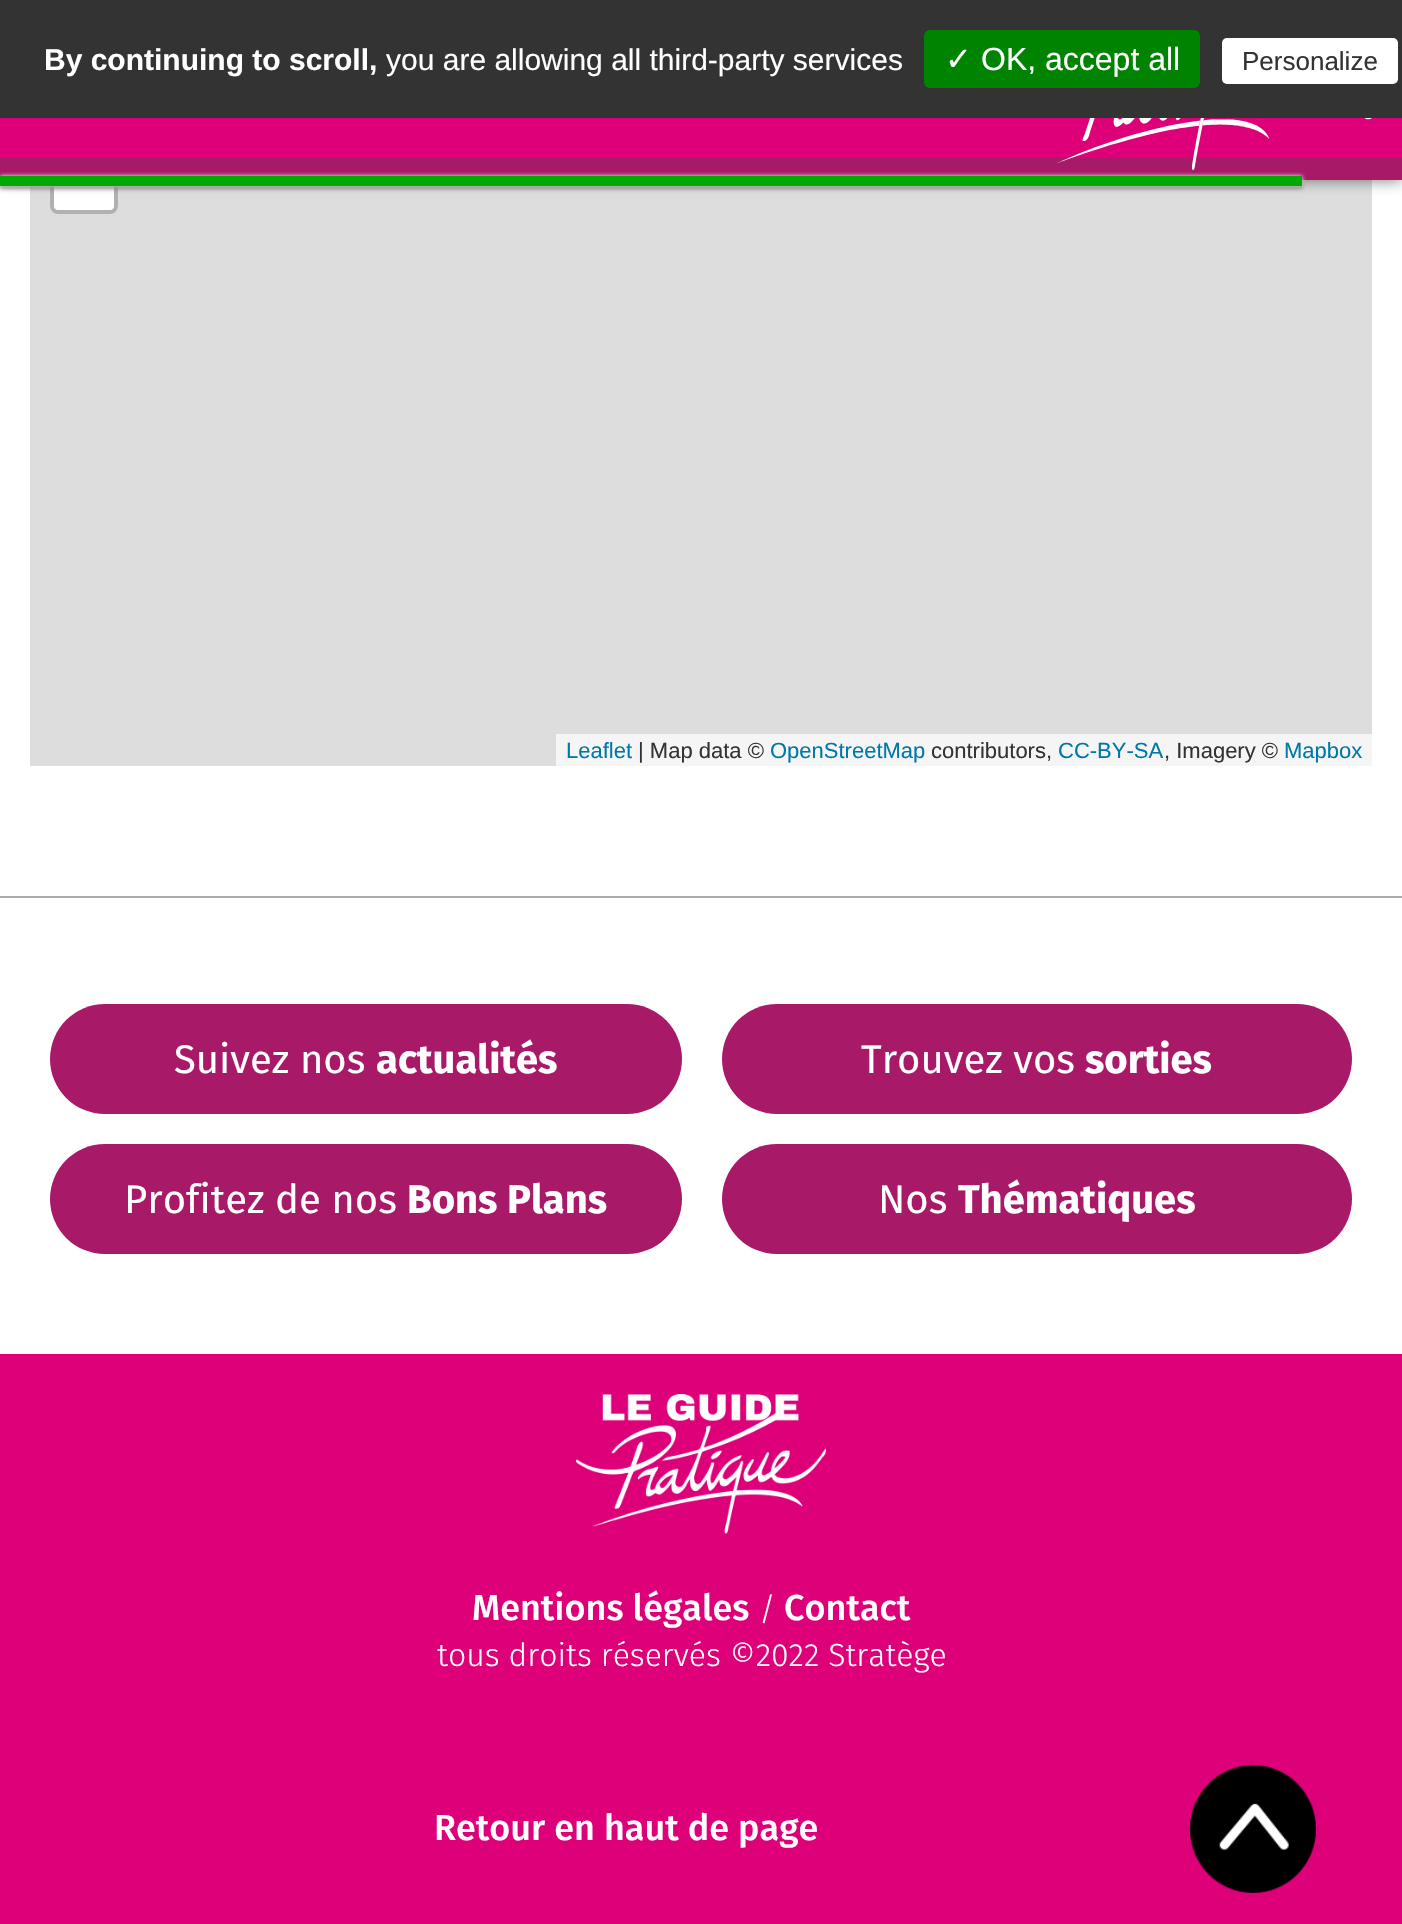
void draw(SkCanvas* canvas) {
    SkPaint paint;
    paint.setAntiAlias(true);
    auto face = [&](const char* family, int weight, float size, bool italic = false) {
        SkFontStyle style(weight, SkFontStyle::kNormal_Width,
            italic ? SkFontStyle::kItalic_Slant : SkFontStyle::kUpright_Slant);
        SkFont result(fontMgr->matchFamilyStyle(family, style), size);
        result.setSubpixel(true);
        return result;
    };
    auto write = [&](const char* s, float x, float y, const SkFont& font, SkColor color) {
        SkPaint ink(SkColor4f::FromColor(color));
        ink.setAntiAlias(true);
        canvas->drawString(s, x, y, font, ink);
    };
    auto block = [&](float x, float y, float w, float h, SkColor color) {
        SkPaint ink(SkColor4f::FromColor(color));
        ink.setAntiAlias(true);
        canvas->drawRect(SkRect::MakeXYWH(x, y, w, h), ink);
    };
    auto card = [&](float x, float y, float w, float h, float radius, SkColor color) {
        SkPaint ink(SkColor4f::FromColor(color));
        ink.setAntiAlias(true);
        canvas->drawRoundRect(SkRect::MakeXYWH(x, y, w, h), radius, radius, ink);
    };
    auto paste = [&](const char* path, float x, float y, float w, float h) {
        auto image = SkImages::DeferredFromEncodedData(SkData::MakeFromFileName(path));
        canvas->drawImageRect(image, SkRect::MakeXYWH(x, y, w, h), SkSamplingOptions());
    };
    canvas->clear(SK_ColorWHITE);
    block(30, 180, 1342, 586, SkColorSetRGB(221, 221, 221));
    paint.setStyle(SkPaint::kStroke_Style);
    paint.setStrokeWidth(4);
    paint.setColor(SkColorSetRGB(177, 177, 177));
    canvas->drawRoundRect(SkRect::MakeXYWH(52, 88, 64, 124), 6, 6, paint);
    paint.setStyle(SkPaint::kFill_Style);
    paint.setColor(SK_ColorWHITE);
    canvas->drawPath(SkPathBuilder().moveTo(54, 150).lineTo(114, 150).lineTo(114, 206).cubicTo(114, 208, 112, 210, 110, 210).lineTo(58, 210).cubicTo(56, 210, 54, 208, 54, 206).close().detach(), paint);
    paint.setColor(SkColorSetARGB(158, 40, 36, 36));
    paint.setMaskFilter(SkMaskFilter::MakeBlur(kNormal_SkBlurStyle, 7));
    canvas->drawRect(SkRect::MakeXYWH(0, 0, 1402, 180), paint);
    paint.setMaskFilter(nullptr);
    block(0, 118, 1402, 40, SkColorSetRGB(221, 0, 121));
    block(0, 158, 1402, 22, SkColorSetRGB(168, 25, 104));
    paint.setColor(SK_ColorWHITE);
    canvas->drawPath(SkPathBuilder().moveTo(1346, 91).cubicTo(1364, 72, 1336, 44, 1317, 62).cubicTo(1299, 81, 1327, 109, 1346, 91).close().moveTo(1374, 114).cubicTo(1374, 116, 1373, 117, 1372, 118).cubicTo(1367, 122, 1362, 116, 1359, 113).lineTo(1349, 102).cubicTo(1341, 108, 1331, 109, 1322, 107).cubicTo(1292, 97, 1293, 54, 1324, 46).cubicTo(1331, 44, 1338, 45, 1345, 48).cubicTo(1362, 56, 1368, 79, 1357, 94).lineTo(1373, 110).cubicTo(1374, 111, 1374, 112, 1374, 114).close().detach(), paint);
    paste("pic1.png", 1056, 118, 214, 52);
    block(0, 0, 1402, 118, SkColorSetRGB(51, 51, 51));
    auto kFont1 = face("Liberation Sans", 700, 30);
    write("By continuing to scroll,", 44, 70, kFont1, SK_ColorWHITE);
    auto kFont2 = face("Liberation Sans", 400, 30);
    write("you are allowing all third-party services", 386, 70, kFont2, SK_ColorWHITE);
    card(924, 30, 276, 58, 6, SkColorSetRGB(0, 131, 0));
    auto kFont3 = face("DejaVu Sans", 400, 32);
    write("✓", 945, 70, kFont3, SK_ColorWHITE);
    auto kFont4 = face("Liberation Sans", 400, 32);
    write("OK, accept all", 981, 70, kFont4, SK_ColorWHITE);
    card(1222, 38, 176, 46, 5, SK_ColorWHITE);
    auto kFont5 = face("Liberation Sans", 400, 26);
    write("Personalize", 1242, 70, kFont5, SkColorSetRGB(51, 51, 51));
    paint.setColor(SkColorSetRGB(85, 85, 85));
    paint.setMaskFilter(SkMaskFilter::MakeBlur(kNormal_SkBlurStyle, 2));
    canvas->drawRect(SkRect::MakeXYWH(0, 178, 1302, 10), paint);
    paint.setMaskFilter(nullptr);
    paint.setColor(SK_ColorWHITE);
    paint.setMaskFilter(SkMaskFilter::MakeBlur(kNormal_SkBlurStyle, 2));
    canvas->drawRect(SkRect::MakeXYWH(0, 176, 1302, 10), paint);
    paint.setMaskFilter(nullptr);
    block(0, 176, 1302, 10, SkColorSetRGB(0, 170, 0));
    block(556, 734, 816, 32, SkColorSetRGB(245, 245, 245));
    auto kFont6 = face("Liberation Sans", 400, 22);
    write("Leaflet", 566, 758, kFont6, SkColorSetRGB(0, 120, 168));
    write("| Map data ©", 638, 758, kFont6, SkColorSetRGB(51, 51, 51));
    write("OpenStreetMap", 770, 758, kFont6, SkColorSetRGB(0, 120, 168));
    write("contributors,", 931, 758, kFont6, SkColorSetRGB(51, 51, 51));
    write("CC-BY-SA", 1058, 758, kFont6, SkColorSetRGB(0, 120, 168));
    write(", Imagery ©", 1164, 758, kFont6, SkColorSetRGB(51, 51, 51));
    write("Mapbox", 1284, 758, kFont6, SkColorSetRGB(0, 120, 168));
    block(0, 896, 1402, 2, SkColorSetRGB(172, 171, 171));
    card(50, 1004, 632, 110, 55, SkColorSetRGB(168, 25, 104));
    auto kFont7 = face("Fira Sans", 400, 40);
    write("Suivez nos", 174, 1073, kFont7, SK_ColorWHITE);
    auto kFont8 = face("Fira Sans", 700, 40);
    write("actualités", 376, 1073, kFont8, SK_ColorWHITE);
    card(722, 1004, 630, 110, 55, SkColorSetRGB(168, 25, 104));
    write("Trouvez vos", 861, 1073, kFont7, SK_ColorWHITE);
    write("sorties", 1085, 1073, kFont8, SK_ColorWHITE);
    card(50, 1144, 632, 110, 55, SkColorSetRGB(168, 25, 104));
    write("Profitez de nos", 124, 1213, kFont7, SK_ColorWHITE);
    write("Bons Plans", 407, 1213, kFont8, SK_ColorWHITE);
    card(722, 1144, 630, 110, 55, SkColorSetRGB(168, 25, 104));
    write("Nos", 878, 1213, kFont7, SK_ColorWHITE);
    write("Thématiques", 958, 1213, kFont8, SK_ColorWHITE);
    block(0, 1354, 1402, 570, SkColorSetRGB(221, 0, 121));
    paste("pic2.png", 576, 1394, 250, 140);
    auto kFont9 = face("Fira Sans", 500, 36);
    write("Mentions légales", 472, 1620, kFont9, SK_ColorWHITE);
    auto kFont10 = face("Fira Sans", 300, 32);
    write("/", 759, 1620, kFont10, SK_ColorWHITE);
    write("Contact", 784, 1620, kFont9, SK_ColorWHITE);
    write("tous droits réservés ©2022 Stratège", 437, 1666, kFont10, SK_ColorWHITE);
    write("Retour en haut de page", 434, 1840, kFont9, SK_ColorWHITE);
    paste("pic3.png", 1190, 1765, 126, 128);
}
